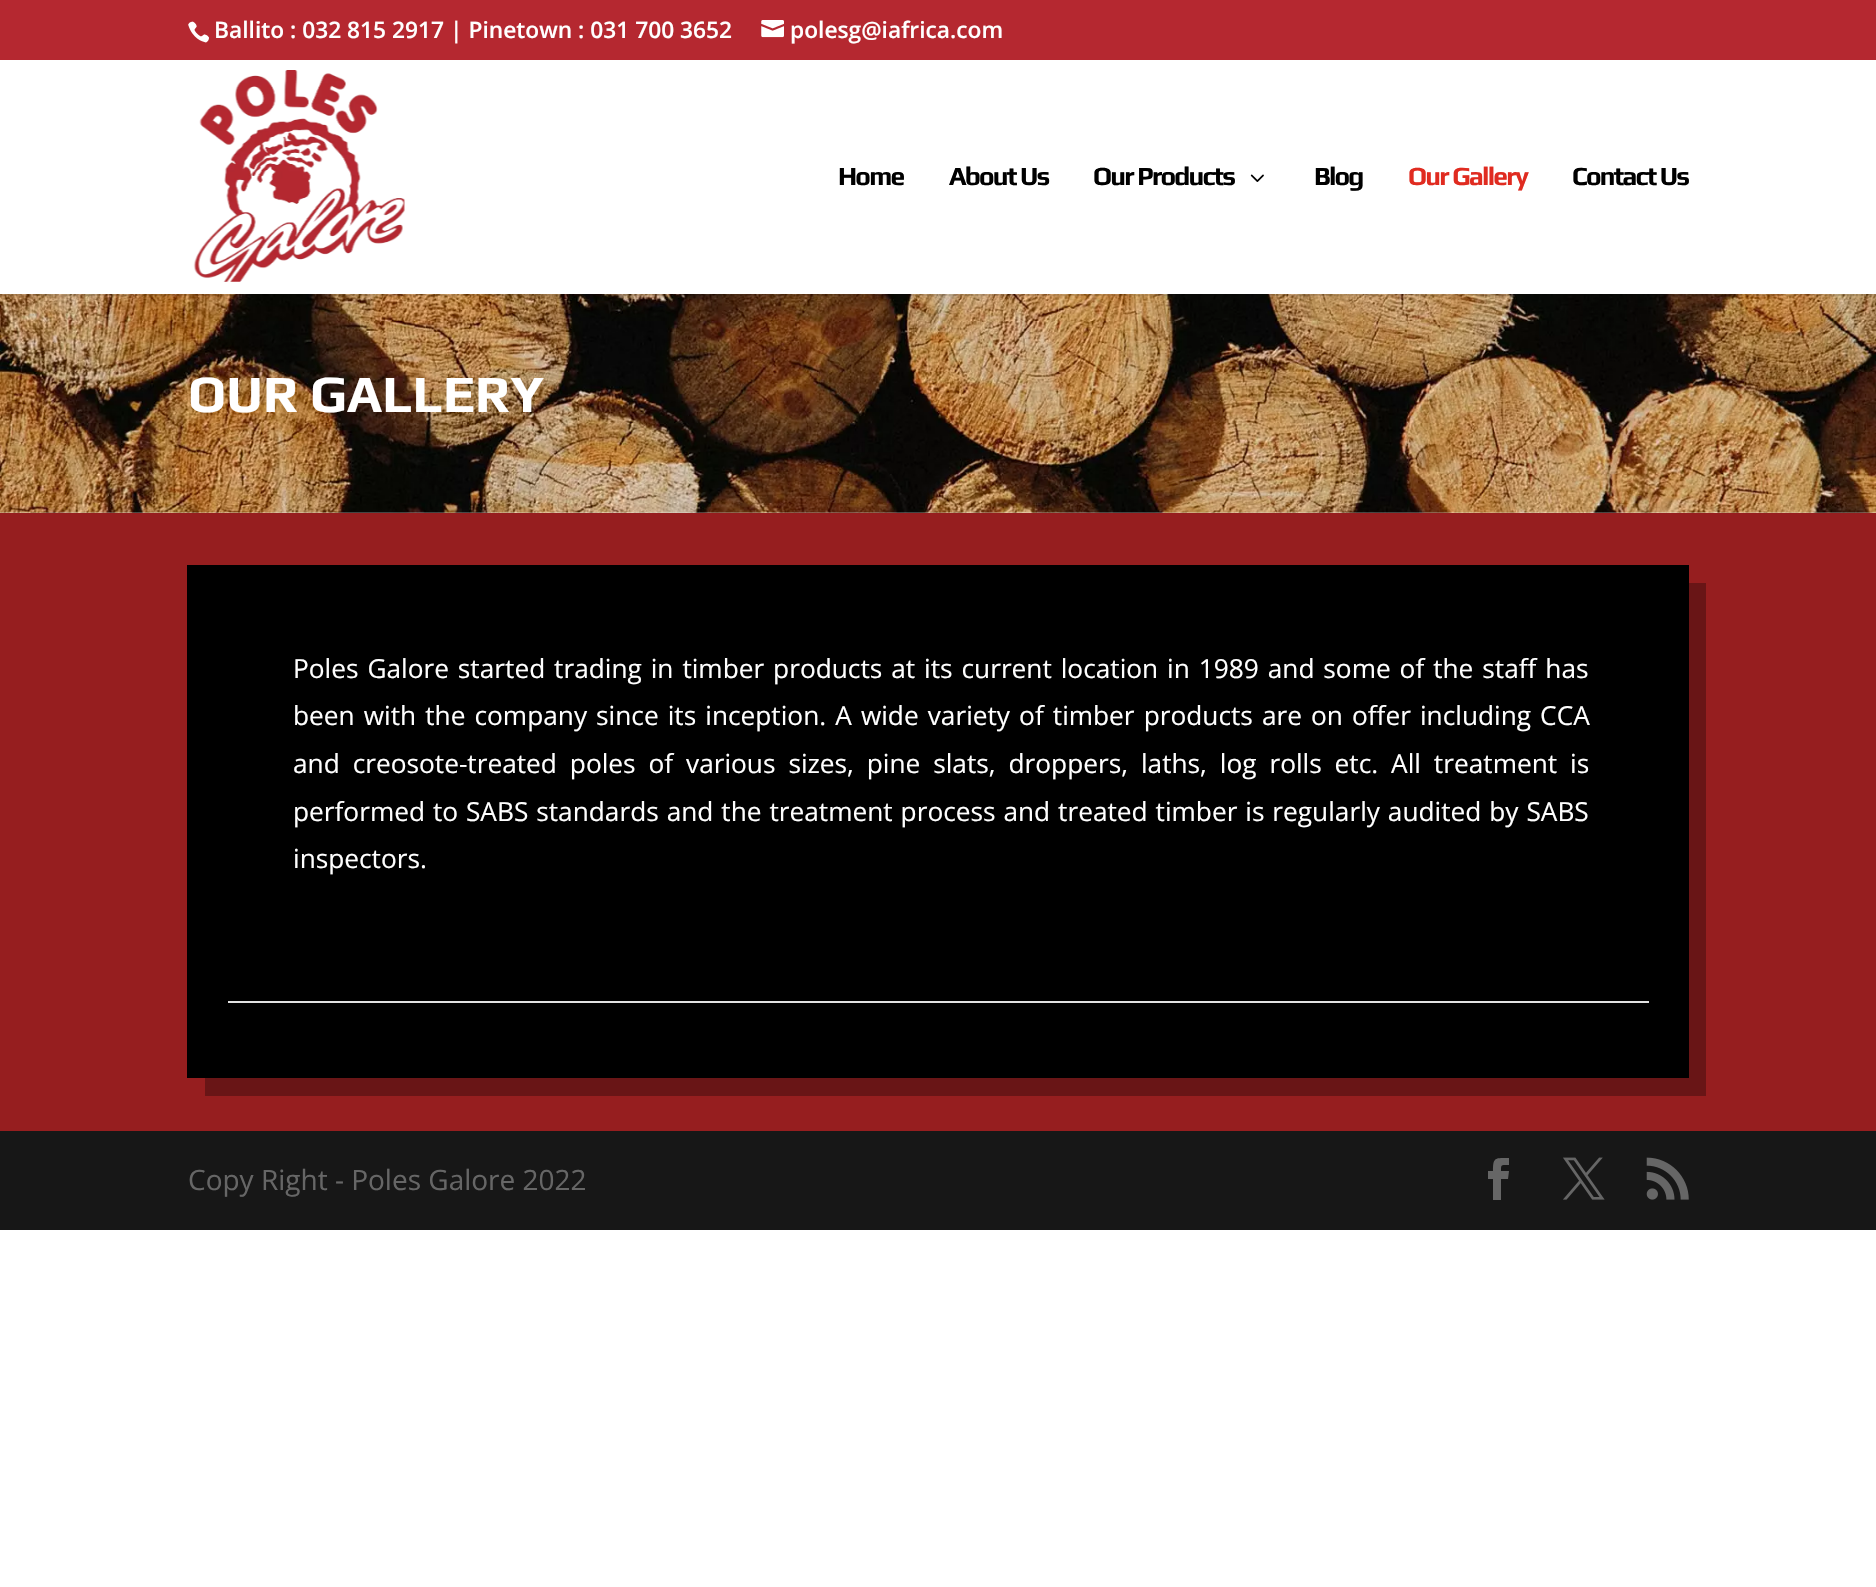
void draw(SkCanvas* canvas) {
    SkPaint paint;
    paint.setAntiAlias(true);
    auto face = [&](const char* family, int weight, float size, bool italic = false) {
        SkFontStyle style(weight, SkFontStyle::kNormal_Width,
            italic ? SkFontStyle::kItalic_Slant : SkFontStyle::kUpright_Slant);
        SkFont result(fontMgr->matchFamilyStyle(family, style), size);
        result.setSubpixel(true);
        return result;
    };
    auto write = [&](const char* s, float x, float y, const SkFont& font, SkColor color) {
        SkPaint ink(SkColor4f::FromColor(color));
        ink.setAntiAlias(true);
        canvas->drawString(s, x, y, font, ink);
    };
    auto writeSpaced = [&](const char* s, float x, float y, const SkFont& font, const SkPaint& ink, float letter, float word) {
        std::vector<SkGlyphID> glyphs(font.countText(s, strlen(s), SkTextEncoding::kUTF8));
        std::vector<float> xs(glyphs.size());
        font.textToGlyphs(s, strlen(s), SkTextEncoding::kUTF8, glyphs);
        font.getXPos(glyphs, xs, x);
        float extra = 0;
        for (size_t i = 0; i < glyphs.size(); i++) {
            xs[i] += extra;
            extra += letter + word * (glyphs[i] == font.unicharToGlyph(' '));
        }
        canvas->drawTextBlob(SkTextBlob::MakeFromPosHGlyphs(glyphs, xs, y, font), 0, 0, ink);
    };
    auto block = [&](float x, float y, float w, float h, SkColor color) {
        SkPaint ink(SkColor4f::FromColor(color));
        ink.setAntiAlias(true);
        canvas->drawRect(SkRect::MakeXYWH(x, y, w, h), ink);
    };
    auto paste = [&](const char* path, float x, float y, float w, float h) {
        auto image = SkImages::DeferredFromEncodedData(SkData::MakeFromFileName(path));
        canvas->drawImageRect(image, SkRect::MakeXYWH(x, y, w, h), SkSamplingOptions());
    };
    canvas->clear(SK_ColorWHITE);
    block(0, 0, 1876, 60, SkColorSetRGB(181, 40, 48));
    paste("pic1.png", 188, 21, 21, 22);
    auto kFont1 = face("Open Sans", 600, 22.75f);
    write("Ballito : 032 815 2917 | Pinetown : 031 700 3652", 214, 38, kFont1, SK_ColorWHITE);
    paste("pic2.png", 761, 20, 23, 18);
    write("polesg@iafrica.com", 790, 38, kFont1, SK_ColorWHITE);
    paste("pic5.png", 0, 294, 1876, 219);
    block(0, 294, 1876, 2, SkColorSetARGB(26, 0, 0, 0));
    paste("pic3.png", 193, 70, 212, 212);
    auto kFont2 = face("Play", 700, 26.25f);
    paint.setColor(SK_ColorBLACK);
    writeSpaced("Home", 838, 185, kFont2, paint, -1.75f, 0);
    writeSpaced("About Us", 949, 185, kFont2, paint, -1.75f, 0);
    writeSpaced("Our Products", 1093, 185, kFont2, paint, -1.75f, 0);
    paste("pic4.png", 1250, 174, 14, 8);
    writeSpaced("Blog", 1314, 185, kFont2, paint, -1.75f, 0);
    paint.setColor(SkColorSetRGB(224, 43, 32));
    writeSpaced("Our Gallery", 1408, 185, kFont2, paint, -1.75f, 0);
    paint.setColor(SK_ColorBLACK);
    writeSpaced("Contact Us", 1572, 185, kFont2, paint, -1.75f, 0);
    auto kFont3 = face("Play", 700, 52.5f);
    write("OUR GALLERY", 188, 412, kFont3, SK_ColorWHITE);
    block(0, 513, 1876, 618, SkColorSetRGB(150, 30, 31));
    paint.setColor(SkColorSetRGB(105, 21, 22));
    canvas->drawPath(SkPathBuilder().moveTo(205, 926).lineTo(205, 943).lineTo(1706, 943).lineTo(1706, 583).lineTo(1689, 583).lineTo(1689, 926).close().detach(), paint);
    block(187, 565, 1502, 361, SK_ColorBLACK);
    auto kFont4 = face("Open Sans", 400, 26.25f);
    paint.setColor(SK_ColorWHITE);
    writeSpaced("Poles Galore started trading in timber products at its current location in 1989 and some of the staff has", 293, 678, kFont4, paint, 0, 2.1f);
    writeSpaced("been with the company since its inception. A wide variety of timber products are on offer including CCA", 293, 725, kFont4, paint, 0, 2.25f);
    writeSpaced("and creosote-treated poles of various sizes, pine slats, droppers, laths, log rolls etc. All treatment is", 293, 773, kFont4, paint, 0, 6.1f);
    writeSpaced("performed to SABS standards and the treatment process and treated timber is regularly audited by SABS", 293, 821, kFont4, paint, 0, 1.1f);
    write("inspectors.", 293, 868, kFont4, SK_ColorWHITE);
    paint.setColor(SkColorSetRGB(105, 21, 22));
    canvas->drawPath(SkPathBuilder().moveTo(205, 1078).lineTo(205, 1096).lineTo(1706, 1096).lineTo(1706, 943).lineTo(1689, 943).lineTo(1689, 1078).close().detach(), paint);
    block(187, 926, 1502, 152, SK_ColorBLACK);
    block(228, 1001, 1421, 2, SkColorSetRGB(226, 226, 226));
    block(0, 1131, 1876, 99, SkColorSetRGB(23, 23, 23));
    auto kFont5 = face("Open Sans", 400, 28);
    write("Copy Right - Poles Galore 2022", 188, 1190, kFont5, SkColorSetRGB(102, 102, 102));
    paint.setColor(SkColorSetRGB(102, 102, 102));
    canvas->drawPath(SkPathBuilder().moveTo(1493, 1200).lineTo(1501, 1200).lineTo(1501, 1179).lineTo(1508, 1179).lineTo(1509, 1171).lineTo(1501, 1171).cubicTo(1501, 1164, 1501, 1165, 1509, 1165).lineTo(1509, 1158).cubicTo(1495, 1158, 1493, 1157, 1493, 1171).lineTo(1488, 1171).lineTo(1488, 1179).lineTo(1493, 1179).close().detach(), paint);
    paste("pic6.png", 1563, 1157, 42, 43);
    paste("pic7.png", 1646, 1157, 43, 43);
}
